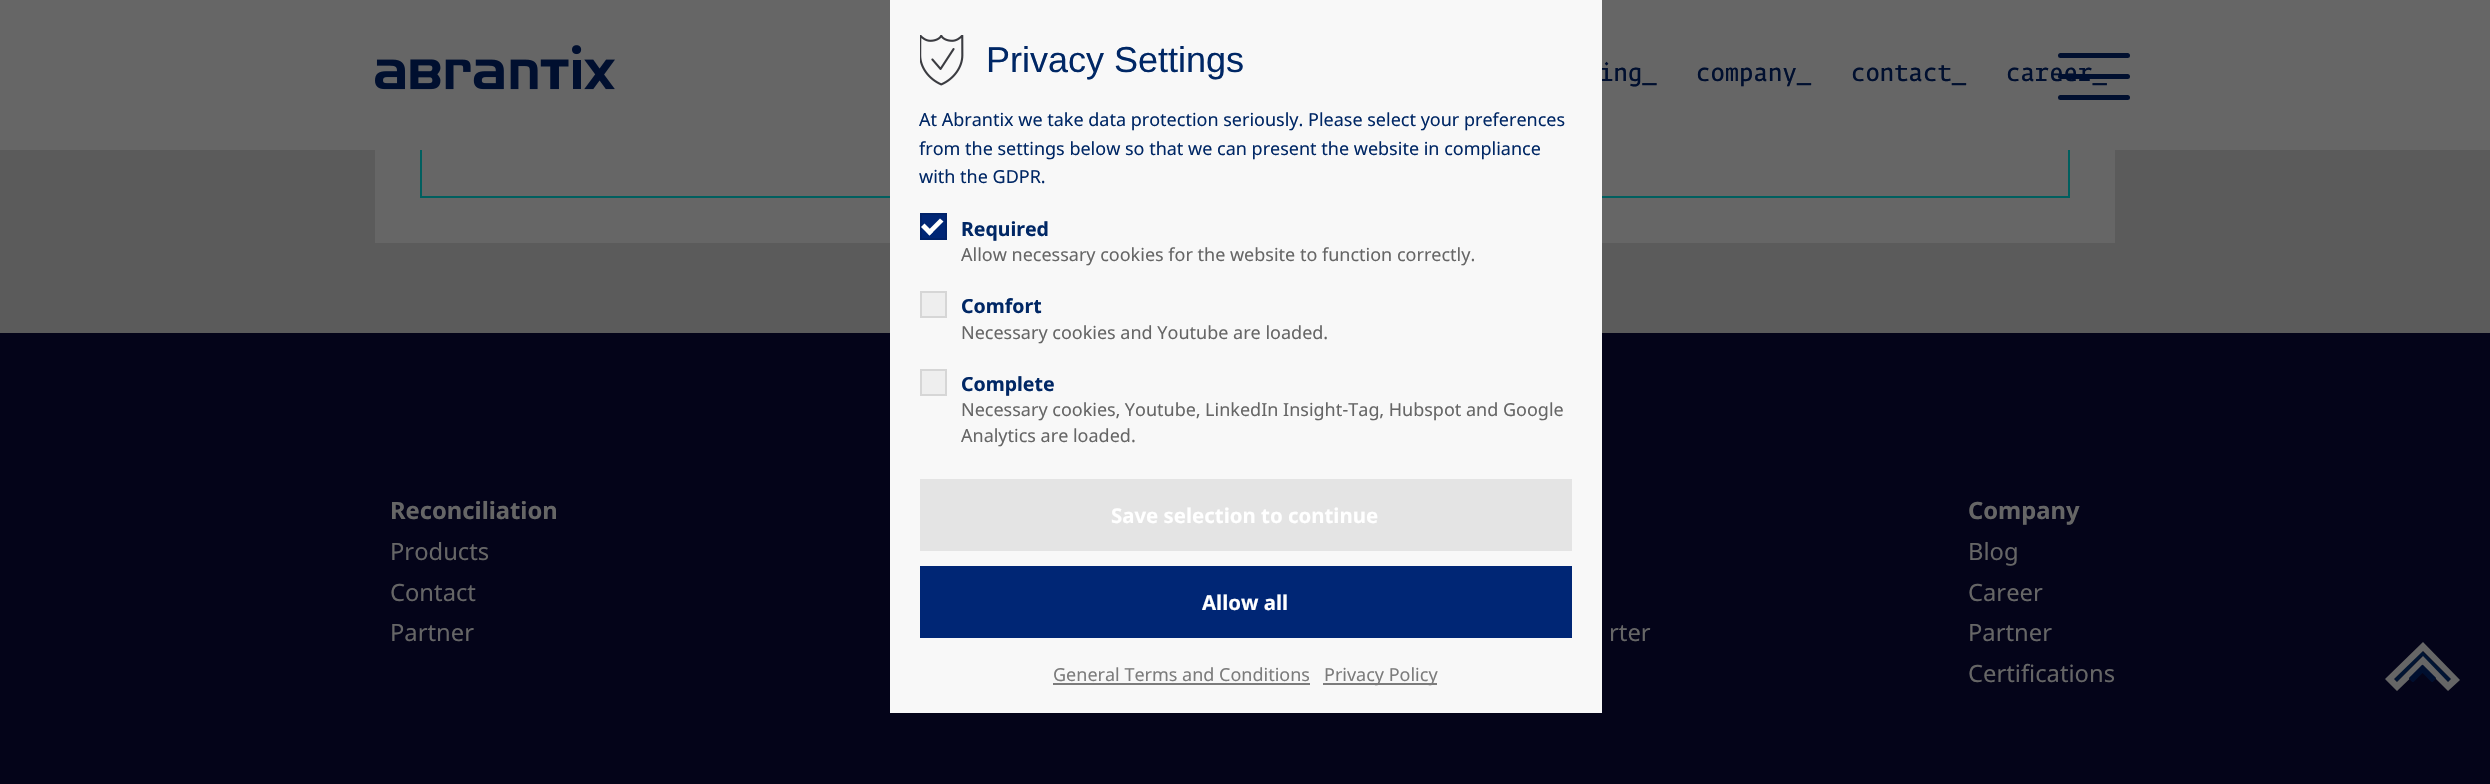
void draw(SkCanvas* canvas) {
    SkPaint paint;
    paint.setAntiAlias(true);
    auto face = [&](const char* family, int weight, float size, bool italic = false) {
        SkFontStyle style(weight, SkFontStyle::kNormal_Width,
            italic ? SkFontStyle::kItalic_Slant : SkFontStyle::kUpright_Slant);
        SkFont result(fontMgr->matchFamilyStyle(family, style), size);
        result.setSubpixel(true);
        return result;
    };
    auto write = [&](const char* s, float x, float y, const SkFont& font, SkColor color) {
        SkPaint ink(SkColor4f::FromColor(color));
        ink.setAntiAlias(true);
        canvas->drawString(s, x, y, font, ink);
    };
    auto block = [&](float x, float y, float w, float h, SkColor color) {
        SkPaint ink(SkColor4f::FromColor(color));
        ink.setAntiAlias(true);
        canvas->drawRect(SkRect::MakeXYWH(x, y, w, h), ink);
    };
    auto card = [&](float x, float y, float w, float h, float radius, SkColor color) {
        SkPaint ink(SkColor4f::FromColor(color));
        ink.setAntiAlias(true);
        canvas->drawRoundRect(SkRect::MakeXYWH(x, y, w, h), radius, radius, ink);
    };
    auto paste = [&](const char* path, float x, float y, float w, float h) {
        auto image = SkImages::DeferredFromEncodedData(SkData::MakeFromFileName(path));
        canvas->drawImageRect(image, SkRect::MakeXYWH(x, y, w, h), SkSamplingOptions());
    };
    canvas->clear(SkColorSetRGB(91, 91, 91));
    block(375, 150, 1740, 93, SkColorSetRGB(102, 102, 102));
    paint.setStyle(SkPaint::kStroke_Style);
    paint.setStrokeWidth(2);
    paint.setColor(SkColorSetRGB(0, 95, 95));
    canvas->drawRect(SkRect::MakeXYWH(421, -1, 1648, 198), paint);
    block(0, 0, 2490, 150, SkColorSetRGB(102, 102, 102));
    auto kFont1 = face("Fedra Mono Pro", 400, 24);
    write("ing_", 1599, 81, kFont1, SkColorSetRGB(0, 15, 47));
    block(0, 333, 2490, 451, SkColorSetRGB(4, 4, 25));
    block(890, 0, 712, 713, SkColorSetRGB(248, 248, 248));
    paste("pic1.png", 920, 35, 44, 51);
    auto kFont2 = face("Liberation Sans", 400, 36);
    write("Privacy Settings", 986, 72, kFont2, SkColorSetRGB(0, 39, 101));
    auto kFont3 = face("Noto Sans", 400, 18);
    write("At Abrantix we take data protection seriously. Please select your preferences", 919, 126, kFont3, SkColorSetRGB(0, 39, 101));
    write("from the settings below so that we can present the website in compliance", 919, 155, kFont3, SkColorSetRGB(0, 39, 101));
    write("with the GDPR.", 919, 183, kFont3, SkColorSetRGB(0, 39, 101));
    paint.setStyle(SkPaint::kFill_Style);
    paint.setColor(SkColorSetRGB(0, 38, 117));
    canvas->drawRect(SkRect::MakeXYWH(921, 214, 25, 25), paint);
    paint.setStyle(SkPaint::kStroke_Style);
    paint.setColor(SkColorSetRGB(0, 34, 105));
    canvas->drawRect(SkRect::MakeXYWH(921, 214, 25, 25), paint);
    paint.setStyle(SkPaint::kFill_Style);
    paint.setColor(SK_ColorWHITE);
    canvas->drawPath(SkPathBuilder().moveTo(940, 218.5f).lineTo(943.5f, 221.5f).lineTo(929.5f, 235.5f).lineTo(926.5f, 232).close().detach(), paint);
    canvas->drawPath(SkPathBuilder().moveTo(924.5f, 223.5f).lineTo(933, 232).lineTo(929.5f, 235.5f).lineTo(921, 227).close().detach(), paint);
    auto kFont4 = face("Noto Sans", 700, 19.5f);
    write("Required", 961, 236, kFont4, SkColorSetRGB(0, 39, 101));
    write("Allow necessary cookies for the website to function correctly.", 961, 261, kFont3, SkColorSetRGB(102, 102, 102));
    paint.setColor(SkColorSetRGB(238, 238, 238));
    canvas->drawRect(SkRect::MakeXYWH(921, 292, 25, 25), paint);
    paint.setStyle(SkPaint::kStroke_Style);
    paint.setColor(SkColorSetRGB(214, 214, 214));
    canvas->drawRect(SkRect::MakeXYWH(921, 292, 25, 25), paint);
    write("Comfort", 961, 313, kFont4, SkColorSetRGB(0, 39, 101));
    write("Necessary cookies and Youtube are loaded.", 961, 339, kFont3, SkColorSetRGB(102, 102, 102));
    paint.setStyle(SkPaint::kFill_Style);
    paint.setColor(SkColorSetRGB(238, 238, 238));
    canvas->drawRect(SkRect::MakeXYWH(921, 370, 25, 25), paint);
    paint.setStyle(SkPaint::kStroke_Style);
    paint.setColor(SkColorSetRGB(214, 214, 214));
    canvas->drawRect(SkRect::MakeXYWH(921, 370, 25, 25), paint);
    write("Complete", 961, 391, kFont4, SkColorSetRGB(0, 39, 101));
    write("Necessary cookies, Youtube, LinkedIn Insight-Tag, Hubspot and Google", 961, 416, kFont3, SkColorSetRGB(102, 102, 102));
    write("Analytics are loaded.", 961, 442, kFont3, SkColorSetRGB(102, 102, 102));
    block(920, 479, 652, 72, SkColorSetRGB(228, 228, 228));
    auto kFont5 = face("Noto Sans", 700, 20.4f);
    write("Save selection to continue", 1111, 523, kFont5, SK_ColorWHITE);
    block(920, 566, 652, 72, SkColorSetRGB(0, 38, 117));
    write("Allow all", 1202, 610, kFont5, SK_ColorWHITE);
    write("General Terms and Conditions", 1053, 681, kFont3, SkColorSetRGB(124, 124, 124));
    block(1053, 683, 257, 2, SkColorSetRGB(124, 124, 124));
    block(1323, 683, 114, 2, SkColorSetRGB(124, 124, 124));
    write("Privacy Policy", 1324, 681, kFont3, SkColorSetRGB(124, 124, 124));
    paste("pic2.png", 375, 45, 240, 45);
    card(2058, 74, 72, 5, 2.5f, SkColorSetRGB(0, 15, 47));
    card(2058, 53, 72, 5, 2.5f, SkColorSetRGB(0, 15, 47));
    card(2058, 95, 72, 5, 2.5f, SkColorSetRGB(0, 15, 47));
    write("company_", 1696, 81, kFont1, SkColorSetRGB(0, 15, 47));
    write("contact_", 1851, 81, kFont1, SkColorSetRGB(0, 15, 47));
    write("career_", 2006, 81, kFont1, SkColorSetRGB(0, 15, 47));
    auto kFont6 = face("Noto Sans", 700, 23.75f);
    write("Reconciliation", 390, 519, kFont6, SkColorSetRGB(102, 102, 102));
    auto kFont7 = face("Noto Sans", 400, 23.75f);
    write("Products", 390, 560, kFont7, SkColorSetRGB(102, 102, 102));
    write("Contact", 390, 601, kFont7, SkColorSetRGB(102, 102, 102));
    write("Partner", 390, 641, kFont7, SkColorSetRGB(102, 102, 102));
    write("rter", 1609, 641, kFont7, SkColorSetRGB(102, 102, 102));
    write("Company", 1968, 519, kFont6, SkColorSetRGB(102, 102, 102));
    write("Blog", 1968, 560, kFont7, SkColorSetRGB(102, 102, 102));
    write("Career", 1968, 601, kFont7, SkColorSetRGB(102, 102, 102));
    write("Partner", 1968, 641, kFont7, SkColorSetRGB(102, 102, 102));
    write("Certifications", 1968, 682, kFont7, SkColorSetRGB(102, 102, 102));
    paint.setStyle(SkPaint::kFill_Style);
    paint.setColor(SkColorSetRGB(0, 20, 51));
    canvas->drawPath(SkPathBuilder().moveTo(2448, 682).lineTo(2422, 656).lineTo(2397, 682).lineTo(2394, 679).lineTo(2422, 651).lineTo(2451, 679).close().detach(), paint);
    paint.setColor(SkColorSetRGB(102, 102, 102));
    canvas->drawPath(SkPathBuilder().moveTo(2423, 651).lineTo(2451, 679).lineTo(2448, 682).lineTo(2423, 656).lineTo(2397, 682).lineTo(2394, 679).lineTo(2423, 651).moveTo(2423, 642).lineTo(2385, 679).lineTo(2397, 691).lineTo(2423, 666).lineTo(2448, 691).lineTo(2460, 680).close().detach(), paint);
    paste("pic3.png", 2409, 664, 27, 18);
}
